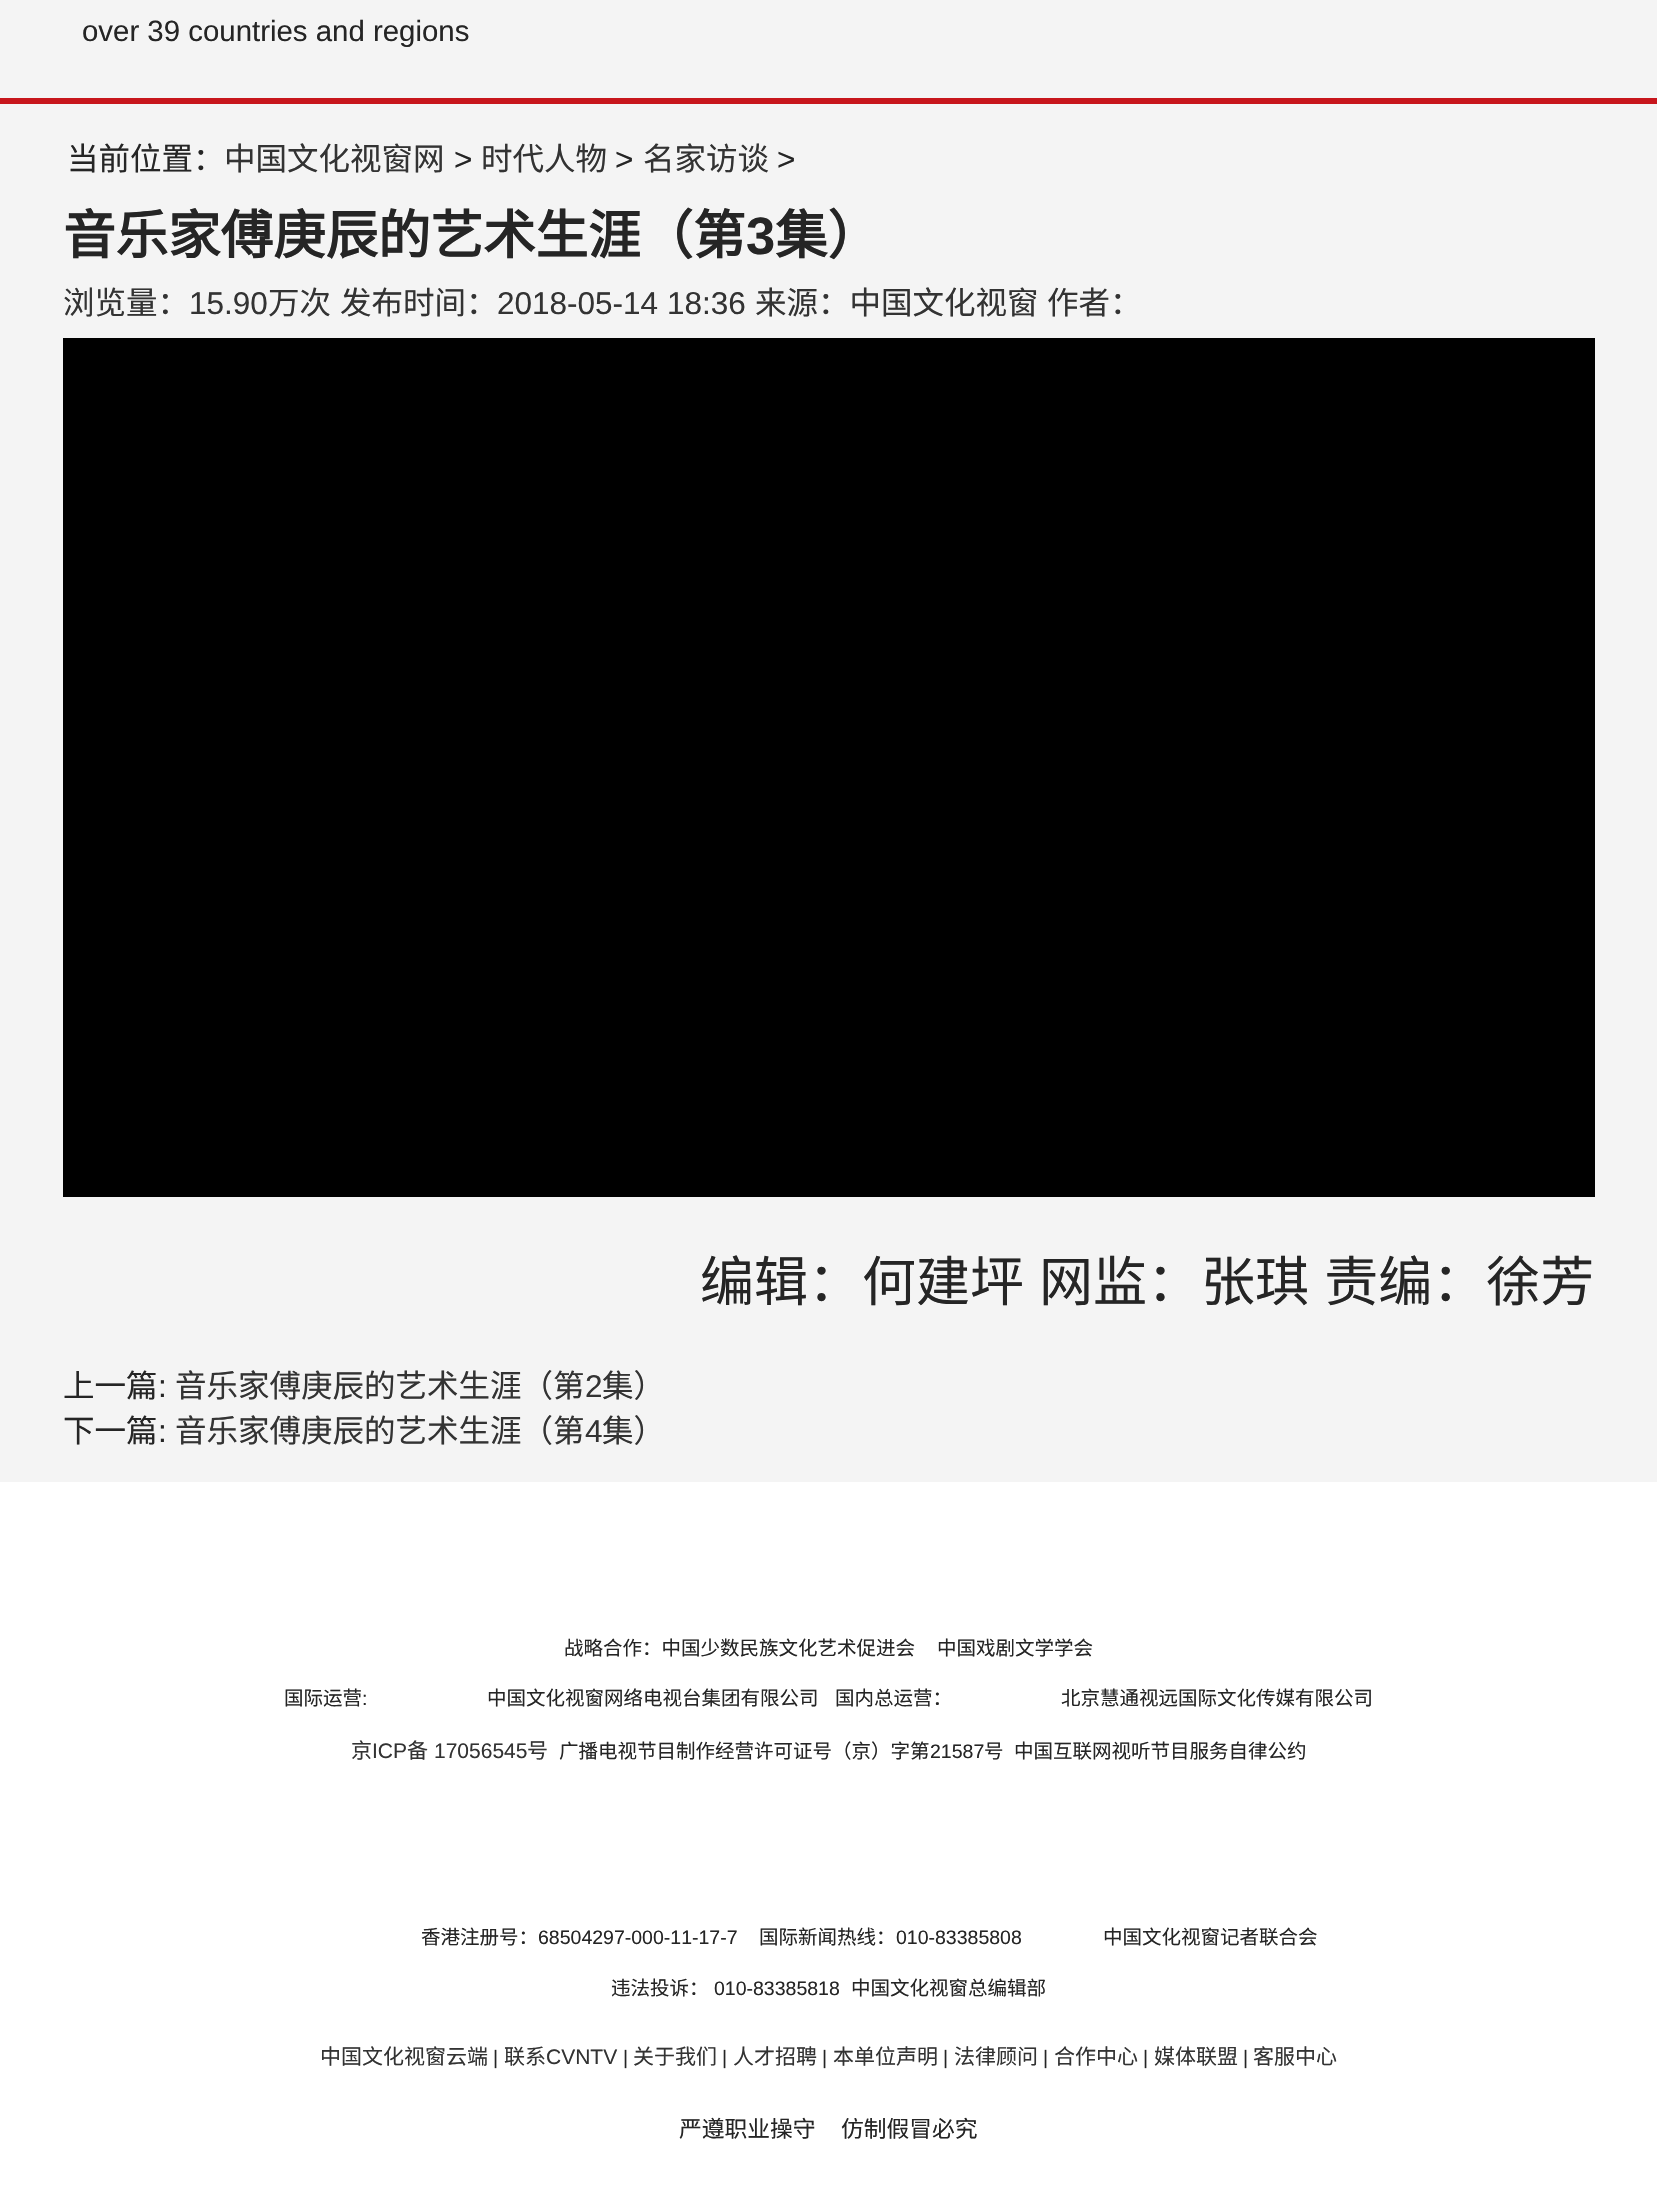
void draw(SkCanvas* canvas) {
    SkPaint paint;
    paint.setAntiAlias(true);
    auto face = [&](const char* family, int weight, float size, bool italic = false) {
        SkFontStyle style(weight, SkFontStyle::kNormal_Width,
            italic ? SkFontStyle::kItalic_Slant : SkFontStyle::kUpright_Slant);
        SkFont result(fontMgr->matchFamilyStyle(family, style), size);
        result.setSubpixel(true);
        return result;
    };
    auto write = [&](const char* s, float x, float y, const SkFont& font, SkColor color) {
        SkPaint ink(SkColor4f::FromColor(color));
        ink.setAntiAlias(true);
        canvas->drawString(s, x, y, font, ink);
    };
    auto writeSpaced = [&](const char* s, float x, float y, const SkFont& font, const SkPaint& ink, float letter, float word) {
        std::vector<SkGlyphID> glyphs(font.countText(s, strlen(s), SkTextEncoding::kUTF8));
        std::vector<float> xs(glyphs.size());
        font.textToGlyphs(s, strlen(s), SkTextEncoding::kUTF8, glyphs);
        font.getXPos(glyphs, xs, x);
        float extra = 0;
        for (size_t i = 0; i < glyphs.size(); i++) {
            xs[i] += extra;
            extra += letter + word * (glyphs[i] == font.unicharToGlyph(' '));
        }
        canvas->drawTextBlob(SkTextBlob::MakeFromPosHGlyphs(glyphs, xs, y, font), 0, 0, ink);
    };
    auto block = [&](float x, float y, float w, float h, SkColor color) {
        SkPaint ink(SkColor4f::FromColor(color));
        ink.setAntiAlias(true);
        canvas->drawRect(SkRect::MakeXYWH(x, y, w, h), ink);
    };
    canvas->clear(SkColorSetRGB(244, 244, 244));
    auto kFont1 = face("Liberation Sans", 400, 29.4f);
    write("over 39 countries and regions", 82, 41, kFont1, SkColorSetRGB(37, 37, 37));
    block(0, 98, 1657, 6, SkColorSetRGB(199, 22, 28));
    auto kFont2 = face("Noto Sans CJK SC", 400, 31.5f);
    write("当前位置：", 67, 170, kFont2, SkColorSetRGB(37, 37, 37));
    write("中国文化视窗网", 224, 170, kFont2, SkColorSetRGB(51, 51, 51));
    auto kFont3 = face("Liberation Sans", 400, 31.5f);
    write(">", 454, 170, kFont3, SkColorSetRGB(37, 37, 37));
    write("时代人物", 481, 170, kFont2, SkColorSetRGB(51, 51, 51));
    write(">", 615, 170, kFont3, SkColorSetRGB(37, 37, 37));
    write("名家访谈", 643, 170, kFont2, SkColorSetRGB(51, 51, 51));
    write(">", 777, 170, kFont3, SkColorSetRGB(37, 37, 37));
    auto kFont4 = face("Noto Sans CJK SC", 700, 52.5f);
    write("音乐家傅庚辰的艺术生涯（第", 63, 254, kFont4, SkColorSetRGB(37, 37, 37));
    auto kFont5 = face("Liberation Sans", 700, 52.5f);
    write("3", 746, 254, kFont5, SkColorSetRGB(37, 37, 37));
    write("集）", 775, 254, kFont4, SkColorSetRGB(37, 37, 37));
    write("浏览量：", 63, 314, kFont2, SkColorSetRGB(51, 51, 51));
    write("15.90", 189, 314, kFont3, SkColorSetRGB(51, 51, 51));
    write("万次", 268, 314, kFont2, SkColorSetRGB(51, 51, 51));
    write("发布时间：", 340, 314, kFont2, SkColorSetRGB(51, 51, 51));
    write("2018-05-14 18:36", 497, 314, kFont3, SkColorSetRGB(51, 51, 51));
    write("来源：中国文化视窗", 755, 314, kFont2, SkColorSetRGB(51, 51, 51));
    write("作者：", 1047, 314, kFont2, SkColorSetRGB(51, 51, 51));
    block(63, 338, 1532, 859, SK_ColorBLACK);
    auto kFont6 = face("Noto Sans CJK SC", 400, 54);
    paint.setColor(SkColorSetRGB(37, 37, 37));
    writeSpaced("编辑：何建坪 网监：张琪 责编：徐芳", 700, 1301, kFont6, paint, 0, 3);
    write("上一篇", 63, 1397, kFont2, SkColorSetRGB(37, 37, 37));
    write(":", 158, 1397, kFont3, SkColorSetRGB(37, 37, 37));
    write("音乐家傅庚辰的艺术生涯（第", 175, 1397, kFont2, SkColorSetRGB(51, 51, 51));
    write("2", 585, 1397, kFont3, SkColorSetRGB(51, 51, 51));
    write("集）", 602, 1397, kFont2, SkColorSetRGB(51, 51, 51));
    write("下一篇", 63, 1442, kFont2, SkColorSetRGB(37, 37, 37));
    write(":", 158, 1442, kFont3, SkColorSetRGB(37, 37, 37));
    write("音乐家傅庚辰的艺术生涯（第", 175, 1442, kFont2, SkColorSetRGB(51, 51, 51));
    write("4", 585, 1442, kFont3, SkColorSetRGB(51, 51, 51));
    write("集）", 602, 1442, kFont2, SkColorSetRGB(51, 51, 51));
    block(0, 1482, 1657, 728, SK_ColorWHITE);
    auto kFont7 = face("Noto Sans CJK SC", 400, 19.5f);
    write("战略合作：中国少数民族文化艺术促进会", 564, 1655, kFont7, SkColorSetRGB(37, 37, 37));
    write("中国戏剧文学学会", 937, 1655, kFont7, SkColorSetRGB(37, 37, 37));
    write("国际运营", 284, 1705, kFont7, SkColorSetRGB(37, 37, 37));
    auto kFont8 = face("Liberation Sans", 400, 19.5f);
    write(":", 362, 1705, kFont8, SkColorSetRGB(37, 37, 37));
    write("中国文化视窗网络电视台集团有限公司", 487, 1705, kFont7, SkColorSetRGB(37, 37, 37));
    write("国内总运营：", 835, 1705, kFont7, SkColorSetRGB(37, 37, 37));
    write("北京慧通视远国际文化传媒有限公司", 1061, 1705, kFont7, SkColorSetRGB(37, 37, 37));
    auto kFont9 = face("Noto Sans CJK SC", 400, 21);
    write("京", 351, 1758, kFont9, SkColorSetRGB(51, 51, 51));
    auto kFont10 = face("Liberation Sans", 400, 21);
    write("ICP", 372, 1758, kFont10, SkColorSetRGB(51, 51, 51));
    write("备", 407, 1758, kFont9, SkColorSetRGB(51, 51, 51));
    write("17056545", 434, 1758, kFont10, SkColorSetRGB(51, 51, 51));
    write("号", 527, 1758, kFont9, SkColorSetRGB(51, 51, 51));
    write("广播电视节目制作经营许可证号（京）字第", 559, 1758, kFont7, SkColorSetRGB(37, 37, 37));
    write("21587", 930, 1758, kFont8, SkColorSetRGB(37, 37, 37));
    write("号", 984, 1758, kFont7, SkColorSetRGB(37, 37, 37));
    write("中国互联网视听节目服务自律公约", 1014, 1758, kFont7, SkColorSetRGB(37, 37, 37));
    write("香港注册号：", 421, 1944, kFont7, SkColorSetRGB(37, 37, 37));
    write("68504297-000-11-17-7", 538, 1944, kFont8, SkColorSetRGB(37, 37, 37));
    write("国际新闻热线：", 759, 1944, kFont7, SkColorSetRGB(37, 37, 37));
    write("010-83385808", 896, 1944, kFont8, SkColorSetRGB(37, 37, 37));
    write("中国文化视窗记者联合会", 1103, 1944, kFont7, SkColorSetRGB(37, 37, 37));
    write("违法投诉：", 611, 1995, kFont7, SkColorSetRGB(37, 37, 37));
    write("010-83385818", 714, 1995, kFont8, SkColorSetRGB(37, 37, 37));
    write("中国文化视窗总编辑部", 851, 1995, kFont7, SkColorSetRGB(37, 37, 37));
    write("中国文化视窗云端", 320, 2064, kFont9, SkColorSetRGB(51, 51, 51));
    write("|", 493, 2064, kFont8, SkColorSetRGB(37, 37, 37));
    write("联系", 504, 2064, kFont9, SkColorSetRGB(51, 51, 51));
    write("CVNTV", 546, 2064, kFont10, SkColorSetRGB(51, 51, 51));
    write("|", 623, 2064, kFont8, SkColorSetRGB(37, 37, 37));
    write("关于我们", 633, 2064, kFont9, SkColorSetRGB(51, 51, 51));
    write("|", 722, 2064, kFont8, SkColorSetRGB(37, 37, 37));
    write("人才招聘", 733, 2064, kFont9, SkColorSetRGB(51, 51, 51));
    write("|", 822, 2064, kFont8, SkColorSetRGB(37, 37, 37));
    write("本单位声明", 833, 2064, kFont9, SkColorSetRGB(51, 51, 51));
    write("|", 943, 2064, kFont8, SkColorSetRGB(37, 37, 37));
    write("法律顾问", 954, 2064, kFont9, SkColorSetRGB(51, 51, 51));
    write("|", 1043, 2064, kFont8, SkColorSetRGB(37, 37, 37));
    write("合作中心", 1054, 2064, kFont9, SkColorSetRGB(51, 51, 51));
    write("|", 1143, 2064, kFont8, SkColorSetRGB(37, 37, 37));
    write("媒体联盟", 1154, 2064, kFont9, SkColorSetRGB(51, 51, 51));
    write("|", 1243, 2064, kFont8, SkColorSetRGB(37, 37, 37));
    write("客服中心", 1253, 2064, kFont9, SkColorSetRGB(51, 51, 51));
    auto kFont11 = face("Noto Sans CJK SC", 400, 22.75f);
    write("严遵职业操守", 679, 2137, kFont11, SkColorSetRGB(37, 37, 37));
    write("仿制假冒必究", 841, 2137, kFont11, SkColorSetRGB(37, 37, 37));
}
